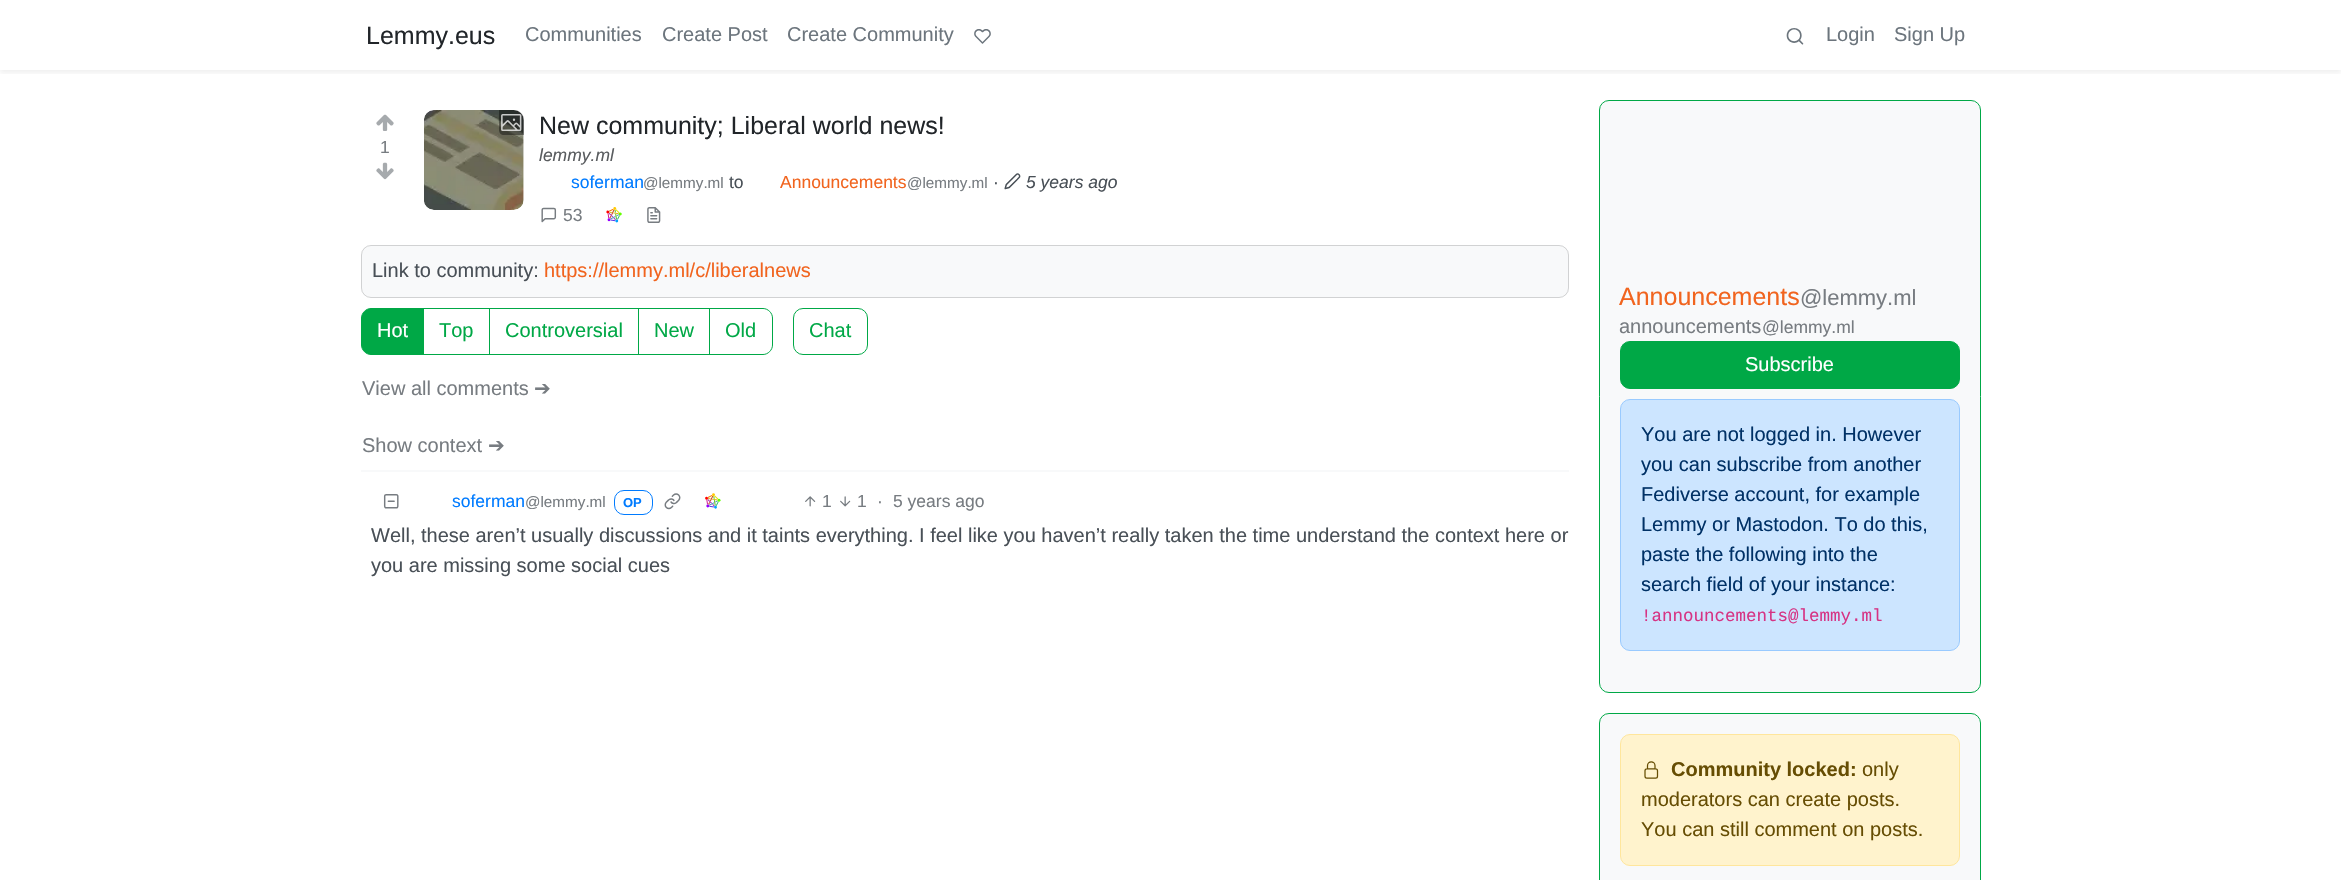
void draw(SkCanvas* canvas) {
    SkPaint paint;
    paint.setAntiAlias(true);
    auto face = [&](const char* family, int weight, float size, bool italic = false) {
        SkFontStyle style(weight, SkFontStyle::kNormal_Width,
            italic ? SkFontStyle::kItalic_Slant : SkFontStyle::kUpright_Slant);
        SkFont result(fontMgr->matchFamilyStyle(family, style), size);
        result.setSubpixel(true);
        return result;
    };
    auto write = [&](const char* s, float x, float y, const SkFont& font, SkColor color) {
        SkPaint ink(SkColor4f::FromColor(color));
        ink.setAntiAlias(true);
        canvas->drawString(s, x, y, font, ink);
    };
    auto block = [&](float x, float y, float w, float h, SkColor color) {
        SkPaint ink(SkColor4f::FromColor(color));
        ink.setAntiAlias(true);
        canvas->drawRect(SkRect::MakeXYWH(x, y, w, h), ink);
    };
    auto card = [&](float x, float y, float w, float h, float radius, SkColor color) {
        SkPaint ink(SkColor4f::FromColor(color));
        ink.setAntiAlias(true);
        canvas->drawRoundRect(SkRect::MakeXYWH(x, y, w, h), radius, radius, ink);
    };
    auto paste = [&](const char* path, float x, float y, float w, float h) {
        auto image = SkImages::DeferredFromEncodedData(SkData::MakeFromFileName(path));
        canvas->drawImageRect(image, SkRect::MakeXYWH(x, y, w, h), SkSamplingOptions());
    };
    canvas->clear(SK_ColorWHITE);
    canvas->save();
    canvas->clipRect(SkRect::MakeXYWH(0, 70, 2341, 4));
    paint.setColor(SkColorSetARGB(18, 34, 34, 34));
    paint.setMaskFilter(SkMaskFilter::MakeBlur(kNormal_SkBlurStyle, 2.5f));
    canvas->drawRect(SkRect::MakeXYWH(0, 3, 2341, 70), paint);
    paint.setMaskFilter(nullptr);
    canvas->restore();
    auto kFont1 = face("Liberation Sans", 400, 25);
    write("Lemmy.eus", 366, 44, kFont1, SkColorSetRGB(33, 37, 41));
    auto kFont2 = face("Liberation Sans", 400, 20);
    write("Communities", 525, 41, kFont2, SkColorSetRGB(108, 117, 125));
    write("Create Post", 662, 41, kFont2, SkColorSetRGB(108, 117, 125));
    write("Create Community", 787, 41, kFont2, SkColorSetRGB(108, 117, 125));
    paste("pic1.png", 974, 29, 17, 15);
    paste("pic2.png", 1786, 28, 18, 17);
    write("Login", 1826, 41, kFont2, SkColorSetRGB(108, 117, 125));
    write("Sign Up", 1894, 41, kFont2, SkColorSetRGB(108, 117, 125));
    paste("pic3.png", 376, 114, 18, 17);
    auto kFont3 = face("Liberation Sans", 400, 17.5f);
    write("1", 380, 153, kFont3, SkColorSetRGB(119, 124, 129));
    paste("pic4.png", 376, 162, 18, 18);
    paste("pic5.png", 424, 110, 100, 100);
    paint.setColor(SkColorSetARGB(102, 0, 0, 0));
    canvas->drawPath(SkPathBuilder().moveTo(499, 110).lineTo(514, 110).cubicTo(519.5f, 110, 524, 114.5f, 524, 120).lineTo(524, 135).lineTo(504, 135).cubicTo(501, 135, 499, 133, 499, 130).close().detach(), paint);
    paste("pic6.png", 501, 114, 21, 17);
    write("New community; Liberal world news!", 539, 134, kFont1, SkColorSetRGB(33, 37, 41));
    auto kFont4 = face("Liberation Sans", 400, 17.5f, true);
    write("lemmy.ml", 539, 161, kFont4, SkColorSetRGB(89, 92, 95));
    write("soferman", 571, 188, kFont3, SkColorSetRGB(0, 123, 255));
    auto kFont5 = face("Liberation Sans", 400, 15.25f);
    write("@lemmy.ml", 643, 188, kFont5, SkColorSetRGB(119, 124, 129));
    write("to", 729, 188, kFont3, SkColorSetRGB(73, 80, 87));
    write("Announcements", 780, 188, kFont3, SkColorSetRGB(241, 100, 30));
    write("@lemmy.ml", 907, 188, kFont5, SkColorSetRGB(119, 124, 129));
    write("·", 993, 188, kFont3, SkColorSetRGB(73, 80, 87));
    paste("pic7.png", 1004, 173, 17, 17);
    write("5 years ago", 1026, 188, kFont4, SkColorSetRGB(73, 80, 87));
    paste("pic8.png", 541, 207, 16, 16);
    write("53", 563, 221, kFont3, SkColorSetRGB(119, 124, 129));
    paste("pic9.png", 606, 207, 16, 16);
    paste("pic10.png", 647, 207, 14, 16);
    card(361, 245, 1208, 53, 10, SkColorSetRGB(248, 249, 250));
    paint.setStyle(SkPaint::kStroke_Style);
    paint.setStrokeWidth(1);
    paint.setColor(SkColorSetARGB(46, 34, 34, 34));
    canvas->drawRoundRect(SkRect::MakeXYWH(361.5f, 245.5f, 1207, 52), 9.5f, 9.5f, paint);
    write("Link to community:", 372, 277, kFont2, SkColorSetRGB(73, 80, 87));
    write("https://lemmy.ml/c/liberalnews", 544, 277, kFont2, SkColorSetRGB(241, 100, 30));
    paint.setColor(SkColorSetRGB(0, 168, 70));
    canvas->drawRect(SkRect::MakeXYWH(423.5f, 308.5f, 66, 46), paint);
    paint.setStyle(SkPaint::kFill_Style);
    canvas->drawPath(SkPathBuilder().moveTo(371, 308.5f).lineTo(423.5f, 308.5f).lineTo(423.5f, 354.5f).lineTo(371, 354.5f).cubicTo(366, 354.5f, 361.5f, 350, 361.5f, 345).lineTo(361.5f, 318).cubicTo(361.5f, 313, 366, 308.5f, 371, 308.5f).close().detach(), paint);
    paint.setStyle(SkPaint::kStroke_Style);
    canvas->drawPath(SkPathBuilder().moveTo(371, 308.5f).lineTo(423.5f, 308.5f).lineTo(423.5f, 354.5f).lineTo(371, 354.5f).cubicTo(366, 354.5f, 361.5f, 350, 361.5f, 345).lineTo(361.5f, 318).cubicTo(361.5f, 313, 366, 308.5f, 371, 308.5f).close().detach(), paint);
    write("Hot", 377, 337, kFont2, SK_ColorWHITE);
    write("Top", 439, 337, kFont2, SkColorSetRGB(0, 168, 70));
    canvas->drawRect(SkRect::MakeXYWH(489.5f, 308.5f, 149, 46), paint);
    write("Controversial", 505, 337, kFont2, SkColorSetRGB(0, 168, 70));
    canvas->drawRect(SkRect::MakeXYWH(638.5f, 308.5f, 71, 46), paint);
    write("New", 654, 337, kFont2, SkColorSetRGB(0, 168, 70));
    canvas->drawPath(SkPathBuilder().moveTo(709.5f, 308.5f).lineTo(763, 308.5f).cubicTo(768, 308.5f, 772.5f, 313, 772.5f, 318).lineTo(772.5f, 345).cubicTo(772.5f, 350, 768, 354.5f, 763, 354.5f).lineTo(709.5f, 354.5f).close().detach(), paint);
    write("Old", 725, 337, kFont2, SkColorSetRGB(0, 168, 70));
    canvas->drawRoundRect(SkRect::MakeXYWH(793.5f, 308.5f, 74, 46), 9.5f, 9.5f, paint);
    write("Chat", 809, 337, kFont2, SkColorSetRGB(0, 168, 70));
    write("View all comments", 362, 395, kFont2, SkColorSetRGB(119, 124, 129));
    auto kFont6 = face("DejaVu Sans", 400, 20);
    write("➔", 534, 395, kFont6, SkColorSetRGB(119, 124, 129));
    write("Show context", 362, 452, kFont2, SkColorSetRGB(119, 124, 129));
    write("➔", 488, 452, kFont6, SkColorSetRGB(119, 124, 129));
    block(361, 470, 1208, 2, SkColorSetRGB(248, 249, 250));
    paste("pic11.png", 383, 494, 16, 15);
    write("soferman", 452, 507, kFont3, SkColorSetRGB(0, 123, 255));
    write("@lemmy.ml", 525, 507, kFont5, SkColorSetRGB(119, 124, 129));
    paint.setColor(SkColorSetRGB(0, 123, 255));
    canvas->drawRoundRect(SkRect::MakeXYWH(614.5f, 490.5f, 38, 24), 9.5f, 9.5f, paint);
    auto kFont7 = face("Liberation Sans", 700, 13);
    write("OP", 623, 507, kFont7, SkColorSetRGB(0, 123, 255));
    paste("pic12.png", 664, 493, 17, 17);
    paste("pic13.png", 705, 493, 16, 16);
    paste("pic14.png", 805, 496, 11, 11);
    write("1", 822, 507, kFont3, SkColorSetRGB(119, 124, 129));
    paste("pic15.png", 840, 496, 11, 11);
    write("1", 857, 507, kFont3, SkColorSetRGB(119, 124, 129));
    write("·", 877, 507, kFont3, SkColorSetRGB(119, 124, 129));
    write("5 years ago", 893, 507, kFont3, SkColorSetRGB(119, 124, 129));
    write("Well, these aren’t usually discussions and it taints everything. I feel like you haven’t really taken the time understand the context here or", 371, 542, kFont2, SkColorSetRGB(73, 80, 87));
    write("you are missing some social cues", 371, 572, kFont2, SkColorSetRGB(73, 80, 87));
    paint.setStyle(SkPaint::kFill_Style);
    paint.setColor(SkColorSetRGB(248, 249, 250));
    canvas->drawRoundRect(SkRect::MakeXYWH(1599.5f, 100.5f, 381, 592), 9.5f, 9.5f, paint);
    paint.setStyle(SkPaint::kStroke_Style);
    paint.setColor(SkColorSetRGB(0, 168, 70));
    canvas->drawRoundRect(SkRect::MakeXYWH(1599.5f, 100.5f, 381, 592), 9.5f, 9.5f, paint);
    write("Announcements", 1619, 305, kFont1, SkColorSetRGB(241, 100, 30));
    auto kFont8 = face("Liberation Sans", 400, 22);
    write("@lemmy.ml", 1800, 305, kFont8, SkColorSetRGB(119, 124, 129));
    write("announcements", 1619, 333, kFont2, SkColorSetRGB(119, 124, 129));
    write("@lemmy.ml", 1762, 333, kFont3, SkColorSetRGB(119, 124, 129));
    paint.setStyle(SkPaint::kFill_Style);
    canvas->drawRoundRect(SkRect::MakeXYWH(1620.5f, 341.5f, 339, 47), 9.5f, 9.5f, paint);
    paint.setStyle(SkPaint::kStroke_Style);
    canvas->drawRoundRect(SkRect::MakeXYWH(1620.5f, 341.5f, 339, 47), 9.5f, 9.5f, paint);
    write("Subscribe", 1745, 371, kFont2, SK_ColorWHITE);
    paint.setStyle(SkPaint::kFill_Style);
    paint.setColor(SkColorSetRGB(204, 229, 255));
    canvas->drawRoundRect(SkRect::MakeXYWH(1620.5f, 399.5f, 339, 251), 9.5f, 9.5f, paint);
    paint.setStyle(SkPaint::kStroke_Style);
    paint.setColor(SkColorSetRGB(153, 202, 255));
    canvas->drawRoundRect(SkRect::MakeXYWH(1620.5f, 399.5f, 339, 251), 9.5f, 9.5f, paint);
    write("You are not logged in. However", 1641, 441, kFont2, SkColorSetRGB(0, 49, 102));
    write("you can subscribe from another", 1641, 471, kFont2, SkColorSetRGB(0, 49, 102));
    write("Fediverse account, for example", 1641, 501, kFont2, SkColorSetRGB(0, 49, 102));
    write("Lemmy or Mastodon. To do this,", 1641, 531, kFont2, SkColorSetRGB(0, 49, 102));
    write("paste the following into the", 1641, 561, kFont2, SkColorSetRGB(0, 49, 102));
    write("search field of your instance:", 1641, 591, kFont2, SkColorSetRGB(0, 49, 102));
    auto kFont9 = face("Liberation Mono", 400, 17.5f);
    write("!announcements@lemmy.ml", 1641, 621, kFont9, SkColorSetRGB(214, 51, 132));
    paint.setStyle(SkPaint::kFill_Style);
    paint.setColor(SkColorSetRGB(248, 249, 250));
    canvas->drawRoundRect(SkRect::MakeXYWH(1599.5f, 713.5f, 381, 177), 9.5f, 9.5f, paint);
    paint.setStyle(SkPaint::kStroke_Style);
    paint.setColor(SkColorSetRGB(0, 168, 70));
    canvas->drawRoundRect(SkRect::MakeXYWH(1599.5f, 713.5f, 381, 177), 9.5f, 9.5f, paint);
    paint.setStyle(SkPaint::kFill_Style);
    paint.setColor(SkColorSetRGB(255, 243, 205));
    canvas->drawRoundRect(SkRect::MakeXYWH(1620.5f, 734.5f, 339, 131), 9.5f, 9.5f, paint);
    paint.setStyle(SkPaint::kStroke_Style);
    paint.setColor(SkColorSetRGB(255, 230, 156));
    canvas->drawRoundRect(SkRect::MakeXYWH(1620.5f, 734.5f, 339, 131), 9.5f, 9.5f, paint);
    paste("pic16.png", 1644, 761, 15, 18);
    auto kFont10 = face("Liberation Sans", 700, 20);
    write("Community locked:", 1671, 776, kFont10, SkColorSetRGB(102, 77, 3));
    write("only", 1862, 776, kFont2, SkColorSetRGB(102, 77, 3));
    write("moderators can create posts.", 1641, 806, kFont2, SkColorSetRGB(102, 77, 3));
    write("You can still comment on posts.", 1641, 836, kFont2, SkColorSetRGB(102, 77, 3));
}
